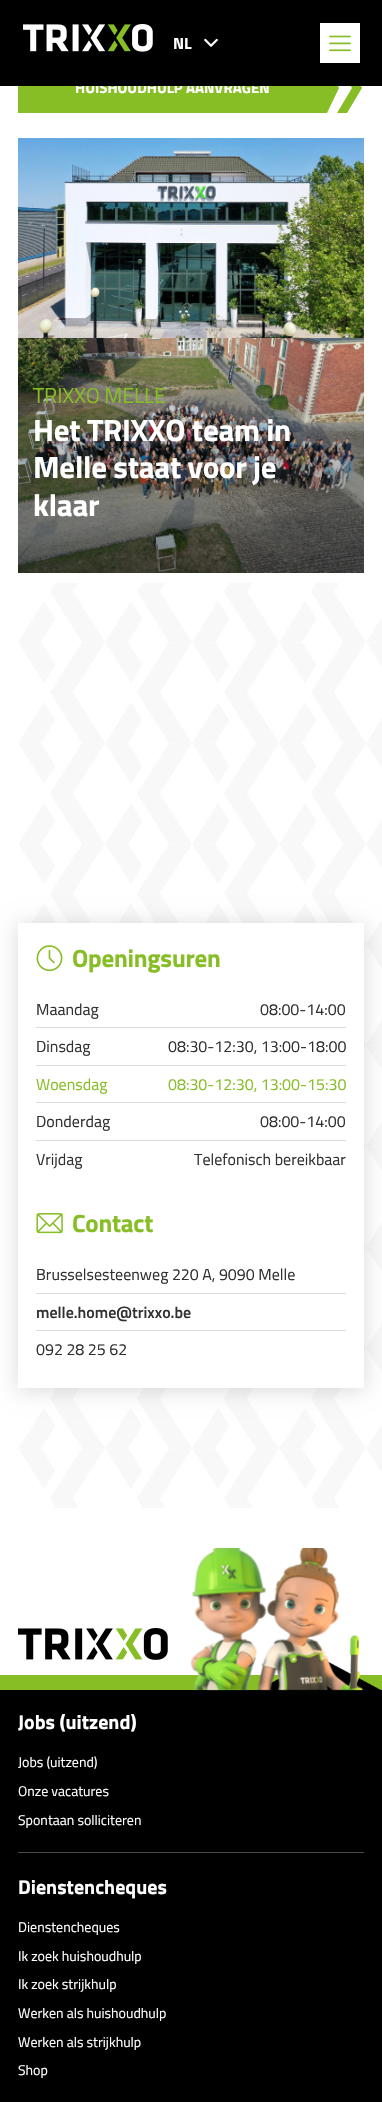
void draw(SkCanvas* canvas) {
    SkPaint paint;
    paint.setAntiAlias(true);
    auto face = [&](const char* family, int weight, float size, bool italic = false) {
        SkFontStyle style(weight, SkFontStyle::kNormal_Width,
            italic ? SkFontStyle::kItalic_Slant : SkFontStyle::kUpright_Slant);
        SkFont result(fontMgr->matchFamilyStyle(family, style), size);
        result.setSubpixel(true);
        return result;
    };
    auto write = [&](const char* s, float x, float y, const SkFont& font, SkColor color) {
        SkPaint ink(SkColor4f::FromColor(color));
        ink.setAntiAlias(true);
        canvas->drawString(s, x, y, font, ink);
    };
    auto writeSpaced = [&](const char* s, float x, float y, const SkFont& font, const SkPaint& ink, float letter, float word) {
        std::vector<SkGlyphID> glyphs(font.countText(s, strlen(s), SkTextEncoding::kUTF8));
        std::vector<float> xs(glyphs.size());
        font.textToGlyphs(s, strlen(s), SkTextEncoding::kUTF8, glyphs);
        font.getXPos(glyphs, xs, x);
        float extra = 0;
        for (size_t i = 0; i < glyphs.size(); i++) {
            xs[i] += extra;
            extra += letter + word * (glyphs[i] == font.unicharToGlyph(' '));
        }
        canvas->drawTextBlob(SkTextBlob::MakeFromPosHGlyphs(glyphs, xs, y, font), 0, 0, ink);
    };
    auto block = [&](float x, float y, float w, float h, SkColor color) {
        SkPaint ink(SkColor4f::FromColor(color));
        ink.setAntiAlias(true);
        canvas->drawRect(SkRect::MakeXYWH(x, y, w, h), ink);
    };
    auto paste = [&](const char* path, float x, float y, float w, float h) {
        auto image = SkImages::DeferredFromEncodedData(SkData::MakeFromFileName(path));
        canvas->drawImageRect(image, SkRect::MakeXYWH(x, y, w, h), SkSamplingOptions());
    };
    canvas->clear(SK_ColorWHITE);
    block(18, 86, 309, 27, SkColorSetRGB(135, 189, 37));
    auto kFont1 = face("Titillium Web", 700, 15);
    write("HUISHOUDHULP AANVRAGEN", 75, 93, kFont1, SK_ColorWHITE);
    paint.setColor(SkColorSetRGB(135, 189, 37));
    canvas->drawPath(SkPathBuilder(SkPathFillType::kEvenOdd).moveTo(347, 63).lineTo(362, 88).lineTo(347, 113).lineTo(337, 113).lineTo(352, 88).lineTo(337, 63).close().detach(), paint);
    canvas->drawPath(SkPathBuilder().moveTo(327, 113).lineTo(327, 63).lineTo(339, 88).close().detach(), paint);
    block(0, 0, 382, 86, SK_ColorBLACK);
    paste("pic1.png", 23, 24, 130, 28);
    auto kFont2 = face("Titillium Web", 700, 16);
    write("NL", 173, 49, kFont2, SK_ColorWHITE);
    paste("pic2.png", 204, 38, 14, 9);
    block(320, 23, 40, 40, SK_ColorWHITE);
    paste("pic3.png", 329, 35, 22, 17);
    paste("pic4.png", 18, 138, 346, 200);
    paste("pic5.png", 18, 338, 346, 235);
    auto kFont3 = face("Titillium Web", 400, 21.5f);
    writeSpaced("TRIXXO MELLE", 33, 403, kFont3, paint, -0.2f, 0);
    auto kFont4 = face("Titillium Web", 700, 31);
    paint.setColor(SK_ColorWHITE);
    writeSpaced("Het TRIXXO team in", 33, 441, kFont4, paint, -0.25f, 0);
    writeSpaced("Melle staat voor je", 33, 478, kFont4, paint, -0.25f, 0);
    writeSpaced("klaar", 33, 516, kFont4, paint, -0.25f, 0);
    paste("pic6.png", 19, 583, 363, 925);
    paint.setColor(SkColorSetARGB(38, 0, 0, 0));
    paint.setMaskFilter(SkMaskFilter::MakeBlur(kNormal_SkBlurStyle, 10));
    canvas->drawRect(SkRect::MakeXYWH(18, 925, 346, 465), paint);
    paint.setMaskFilter(nullptr);
    block(18, 923, 346, 465, SK_ColorWHITE);
    paste("pic7.png", 36, 945, 27, 27);
    auto kFont5 = face("Titillium Web", 700, 25);
    paint.setColor(SkColorSetRGB(135, 189, 37));
    writeSpaced("Openingsuren", 72, 967, kFont5, paint, -0.25f, 0);
    block(36, 1027, 310, 1, SkColorSetRGB(219, 219, 219));
    auto kFont6 = face("Titillium Web", 400, 16);
    write("Maandag", 36, 1015, kFont6, SkColorSetRGB(49, 49, 49));
    write("08:00-14:00", 260, 1015, kFont6, SkColorSetRGB(49, 49, 49));
    block(36, 1065, 310, 1, SkColorSetRGB(219, 219, 219));
    write("Dinsdag", 36, 1052, kFont6, SkColorSetRGB(49, 49, 49));
    write("08:30-12:30, 13:00-18:00", 168, 1052, kFont6, SkColorSetRGB(49, 49, 49));
    block(36, 1102, 310, 1, SkColorSetRGB(219, 219, 219));
    write("Woensdag", 36, 1090, kFont6, SkColorSetRGB(135, 189, 37));
    write("08:30-12:30, 13:00-15:30", 168, 1090, kFont6, SkColorSetRGB(135, 189, 37));
    block(36, 1140, 310, 1, SkColorSetRGB(219, 219, 219));
    write("Donderdag", 36, 1127, kFont6, SkColorSetRGB(49, 49, 49));
    write("08:00-14:00", 260, 1127, kFont6, SkColorSetRGB(49, 49, 49));
    write("Vrijdag", 36, 1165, kFont6, SkColorSetRGB(49, 49, 49));
    write("Telefonisch bereikbaar", 194, 1165, kFont6, SkColorSetRGB(49, 49, 49));
    paste("pic8.png", 36, 1213, 27, 21);
    writeSpaced("Contact", 72, 1232, kFont5, paint, -0.25f, 0);
    block(36, 1293, 310, 1, SkColorSetRGB(219, 219, 219));
    write("Brusselsesteenweg 220 A, 9090 Melle", 36, 1280, kFont6, SkColorSetRGB(49, 49, 49));
    block(36, 1330, 310, 1, SkColorSetRGB(219, 219, 219));
    auto kFont7 = face("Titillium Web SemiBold", 600, 16);
    write("melle.home@trixxo.be", 36, 1318, kFont7, SkColorSetRGB(49, 49, 49));
    write("092 28 25 62", 36, 1355, kFont6, SkColorSetRGB(49, 49, 49));
    paste("pic9.png", 18, 1628, 150, 32);
    block(0, 1675, 382, 15, SkColorSetRGB(135, 189, 37));
    paste("pic11.png", 257, 1660, 125, 30);
    block(0, 1690, 382, 412, SK_ColorBLACK);
    paste("pic10.png", 190, 1548, 173, 143);
    block(18, 1852, 346, 1, SkColorSetRGB(75, 75, 75));
    auto kFont8 = face("Titillium Web", 700, 20);
    write("Jobs (uitzend)", 18, 1729, kFont8, SK_ColorWHITE);
    auto kFont9 = face("Titillium Web", 400, 14);
    write("Jobs (uitzend)", 18, 1767, kFont9, SK_ColorWHITE);
    write("Onze vacatures", 18, 1796, kFont9, SK_ColorWHITE);
    write("Spontaan solliciteren", 18, 1825, kFont9, SK_ColorWHITE);
    write("Dienstencheques", 18, 1894, kFont8, SK_ColorWHITE);
    write("Dienstencheques", 18, 1932, kFont9, SK_ColorWHITE);
    write("Ik zoek huishoudhulp", 18, 1961, kFont9, SK_ColorWHITE);
    write("Ik zoek strijkhulp", 18, 1989, kFont9, SK_ColorWHITE);
    write("Werken als huishoudhulp", 18, 2018, kFont9, SK_ColorWHITE);
    write("Werken als strijkhulp", 18, 2047, kFont9, SK_ColorWHITE);
    write("Shop", 18, 2075, kFont9, SK_ColorWHITE);
}
